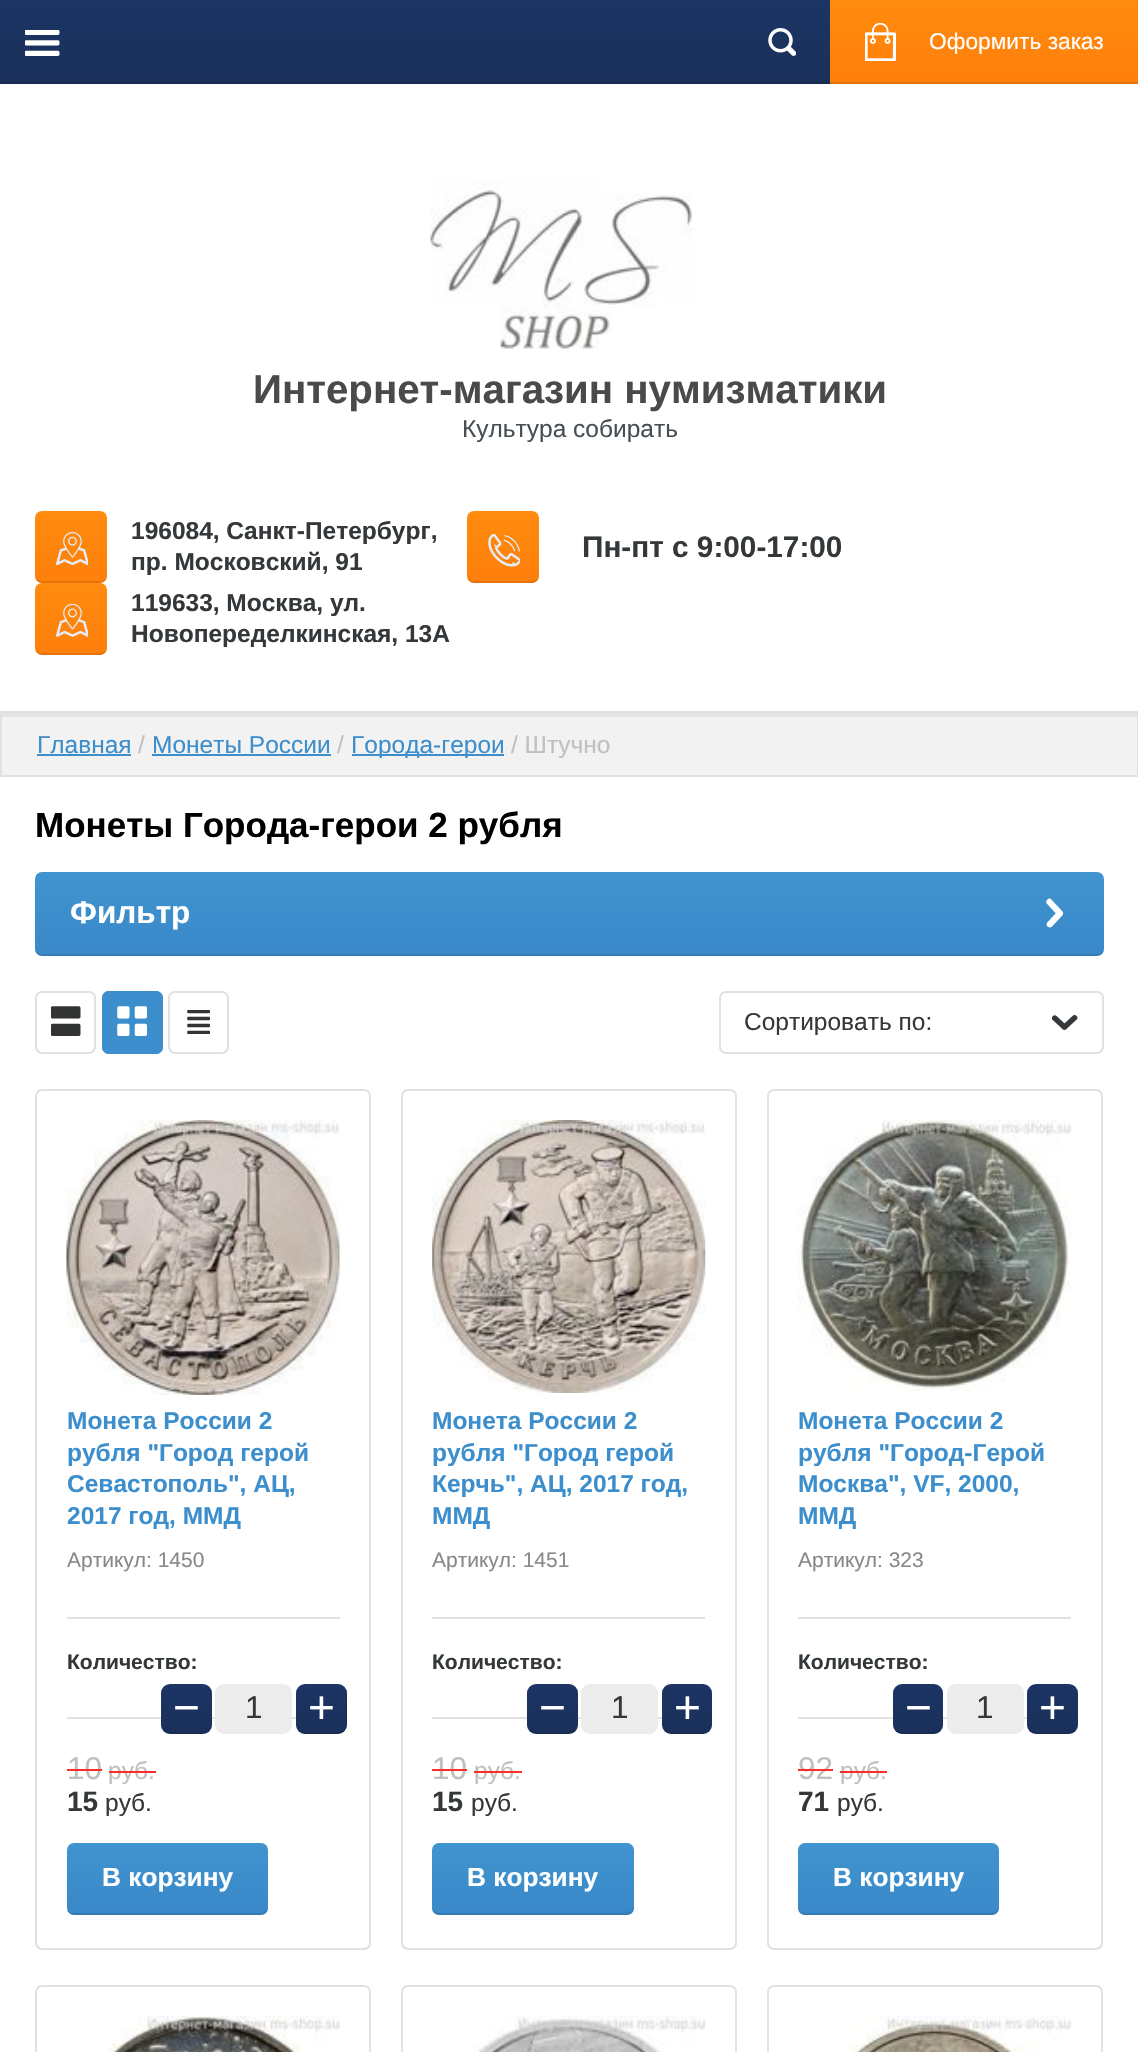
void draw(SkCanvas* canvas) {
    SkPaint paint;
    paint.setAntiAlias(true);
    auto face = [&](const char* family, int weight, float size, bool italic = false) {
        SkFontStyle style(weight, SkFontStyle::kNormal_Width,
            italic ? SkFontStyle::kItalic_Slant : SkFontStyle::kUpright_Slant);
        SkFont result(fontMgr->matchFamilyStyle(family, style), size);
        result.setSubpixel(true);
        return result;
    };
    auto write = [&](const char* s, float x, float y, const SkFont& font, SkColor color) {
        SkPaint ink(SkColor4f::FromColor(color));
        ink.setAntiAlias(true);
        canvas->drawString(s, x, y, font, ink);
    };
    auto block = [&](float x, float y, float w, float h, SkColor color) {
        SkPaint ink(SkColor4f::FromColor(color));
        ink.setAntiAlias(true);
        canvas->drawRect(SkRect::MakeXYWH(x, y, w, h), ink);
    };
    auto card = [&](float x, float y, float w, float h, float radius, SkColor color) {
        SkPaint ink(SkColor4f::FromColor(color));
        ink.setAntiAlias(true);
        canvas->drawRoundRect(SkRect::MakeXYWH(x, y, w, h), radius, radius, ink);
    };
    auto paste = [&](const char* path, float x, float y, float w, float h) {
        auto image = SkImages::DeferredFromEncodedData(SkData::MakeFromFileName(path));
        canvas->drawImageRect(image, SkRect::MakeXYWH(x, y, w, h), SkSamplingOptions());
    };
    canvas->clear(SK_ColorWHITE);
    {
        const SkColor colors[] = {SkColorSetRGB(26, 48, 90), SkColorSetRGB(28, 53, 100)};
        const float stops[] = {0, 1};
        const SkPoint ends[] = {{570, 84}, {570, 0}};
        paint.setShader(SkGradientShader::MakeLinear(ends, colors, stops, 2, SkTileMode::kClamp));
        paint.setAlpha(255);
    }
    canvas->drawRect(SkRect::MakeXYWH(0, 0, 830, 82), paint);
    block(0, 82, 830, 2, SkColorSetRGB(23, 43, 81));
    paste("pic1.png", 768, 28, 28, 28);
    {
        const SkColor colors[] = {SkColorSetRGB(255, 127, 12), SkColorSetRGB(255, 139, 14)};
        const float stops[] = {0, 1};
        const SkPoint ends[] = {{984, 84}, {984, 0}};
        paint.setShader(SkGradientShader::MakeLinear(ends, colors, stops, 2, SkTileMode::kClamp));
        paint.setAlpha(255);
    }
    canvas->drawRect(SkRect::MakeXYWH(830, 0, 308, 82), paint);
    block(830, 82, 308, 2, SkColorSetRGB(230, 114, 11));
    paste("pic2.png", 865, 23, 31, 38);
    auto kFont1 = face("Liberation Sans", 400, 22.75f);
    write("Оформить заказ", 929, 49, kFont1, SK_ColorWHITE);
    paste("pic3.png", 25, 30, 35, 26);
    paste("pic4.png", 430, 180, 263, 169);
    auto kFont2 = face("Liberation Sans", 700, 40.25f);
    write("Интернет-магазин нумизматики", 253, 403, kFont2, SkColorSetRGB(74, 74, 74));
    auto kFont3 = face("Liberation Sans", 400, 24.5f);
    write("Культура собирать", 462, 437, kFont3, SkColorSetRGB(71, 79, 84));
    {
        const SkColor colors[] = {SkColorSetRGB(255, 127, 12), SkColorSetRGB(255, 139, 14)};
        const float stops[] = {0, 1};
        const SkPoint ends[] = {{71, 583}, {71, 511}};
        paint.setShader(SkGradientShader::MakeLinear(ends, colors, stops, 2, SkTileMode::kClamp));
        paint.setAlpha(255);
    }
    canvas->drawRoundRect(SkRect::MakeXYWH(35, 511, 72, 72), 7, 7, paint);
    paint.setShader(nullptr);
    paint.setColor(SkColorSetARGB(26, 0, 0, 0));
    canvas->drawPath(SkPathBuilder().moveTo(35, 574).cubicTo(35, 585, 43, 583, 52, 583).lineTo(90, 583).cubicTo(99, 583, 107, 585, 107, 574).cubicTo(107, 578, 104, 581, 100, 581).lineTo(42, 581).cubicTo(38, 581, 35, 578, 35, 574).close().detach(), paint);
    paste("pic5.png", 56, 532, 32, 33);
    auto kFont4 = face("Liberation Sans", 700, 24.5f);
    write("196084, Санкт-Петербург,", 131, 539, kFont4, SkColorSetRGB(52, 56, 58));
    write("пр. Московский, 91", 131, 570, kFont4, SkColorSetRGB(52, 56, 58));
    {
        const SkColor colors[] = {SkColorSetRGB(255, 127, 12), SkColorSetRGB(255, 139, 14)};
        const float stops[] = {0, 1};
        const SkPoint ends[] = {{503, 583}, {503, 511}};
        paint.setShader(SkGradientShader::MakeLinear(ends, colors, stops, 2, SkTileMode::kClamp));
        paint.setAlpha(255);
    }
    canvas->drawRoundRect(SkRect::MakeXYWH(467, 511, 72, 72), 7, 7, paint);
    paint.setShader(nullptr);
    paint.setColor(SkColorSetARGB(26, 0, 0, 0));
    canvas->drawPath(SkPathBuilder().moveTo(467, 574).cubicTo(467, 585, 475, 583, 484, 583).lineTo(522, 583).cubicTo(531, 583, 539, 585, 539, 574).cubicTo(539, 578, 536, 581, 532, 581).lineTo(474, 581).cubicTo(470, 581, 467, 578, 467, 574).close().detach(), paint);
    paste("pic6.png", 488, 534, 32, 33);
    auto kFont5 = face("Liberation Sans", 700, 29.75f);
    write("Пн-пт с 9:00-17:00", 582, 557, kFont5, SkColorSetRGB(52, 56, 58));
    {
        const SkColor colors[] = {SkColorSetRGB(255, 127, 12), SkColorSetRGB(255, 139, 14)};
        const float stops[] = {0, 1};
        const SkPoint ends[] = {{71, 655}, {71, 583}};
        paint.setShader(SkGradientShader::MakeLinear(ends, colors, stops, 2, SkTileMode::kClamp));
        paint.setAlpha(255);
    }
    canvas->drawRoundRect(SkRect::MakeXYWH(35, 583, 72, 72), 7, 7, paint);
    paint.setShader(nullptr);
    paint.setColor(SkColorSetARGB(26, 0, 0, 0));
    canvas->drawPath(SkPathBuilder().moveTo(35, 646).cubicTo(35, 657, 43, 655, 52, 655).lineTo(90, 655).cubicTo(99, 655, 107, 657, 107, 646).cubicTo(107, 650, 104, 653, 100, 653).lineTo(42, 653).cubicTo(38, 653, 35, 650, 35, 646).close().detach(), paint);
    paste("pic7.png", 56, 604, 32, 33);
    write("119633, Москва, ул.", 131, 611, kFont4, SkColorSetRGB(52, 56, 58));
    write("Новопеределкинская, 13А", 131, 642, kFont4, SkColorSetRGB(52, 56, 58));
    block(2, 717, 1135, 58, SkColorSetRGB(242, 242, 242));
    block(2, 713, 1136, 4, SkColorSetRGB(227, 227, 227));
    paint.setStyle(SkPaint::kStroke_Style);
    paint.setStrokeWidth(2);
    paint.setColor(SkColorSetRGB(225, 225, 225));
    canvas->drawRect(SkRect::MakeXYWH(1, 712, 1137, 64), paint);
    write("Главная", 37, 753, kFont3, SkColorSetRGB(61, 142, 204));
    block(37, 754, 94, 2, SkColorSetRGB(61, 142, 204));
    write("/", 138, 753, kFont3, SkColorSetRGB(192, 192, 192));
    write("Монеты России", 152, 753, kFont3, SkColorSetRGB(61, 142, 204));
    block(152, 754, 179, 2, SkColorSetRGB(61, 142, 204));
    write("/", 337, 753, kFont3, SkColorSetRGB(192, 192, 192));
    block(352, 754, 152, 2, SkColorSetRGB(61, 142, 204));
    write("Города-герои", 351, 753, kFont3, SkColorSetRGB(61, 142, 204));
    write("/ Штучно", 511, 753, kFont3, SkColorSetRGB(192, 192, 192));
    auto kFont6 = face("Liberation Sans", 700, 35);
    write("Монеты Города-герои 2 рубля", 35, 837, kFont6, SK_ColorBLACK);
    paint.setStyle(SkPaint::kFill_Style);
    {
        const SkColor colors[] = {SkColorSetRGB(58, 136, 201), SkColorSetRGB(64, 148, 207)};
        const float stops[] = {0, 1};
        const SkPoint ends[] = {{570, 956}, {570, 872}};
        paint.setShader(SkGradientShader::MakeLinear(ends, colors, stops, 2, SkTileMode::kClamp));
        paint.setAlpha(255);
    }
    canvas->drawRoundRect(SkRect::MakeXYWH(35, 872, 1069, 84), 7, 7, paint);
    paint.setShader(nullptr);
    paint.setColor(SkColorSetARGB(26, 0, 0, 0));
    canvas->drawPath(SkPathBuilder().moveTo(35, 947).cubicTo(35, 951, 37, 956, 42, 956).lineTo(1097, 956).cubicTo(1102, 956, 1104, 951, 1104, 947).cubicTo(1104, 951, 1101, 954, 1097, 954).lineTo(42, 954).cubicTo(38, 954, 35, 951, 35, 947).close().detach(), paint);
    auto kFont7 = face("Liberation Sans", 700, 31.5f);
    write("Фильтр", 70, 923, kFont7, SK_ColorWHITE);
    paste("pic8.png", 1046, 898, 17, 30);
    paste("pic9.png", 51, 1006, 30, 30);
    paint.setStyle(SkPaint::kStroke_Style);
    paint.setColor(SkColorSetRGB(225, 225, 225));
    canvas->drawRoundRect(SkRect::MakeXYWH(36, 992, 59, 61), 6, 6, paint);
    card(102, 991, 61, 63, 7, SkColorSetRGB(61, 142, 204));
    paste("pic10.png", 117, 1006, 30, 30);
    paint.setColor(SkColorSetRGB(61, 142, 204));
    canvas->drawRoundRect(SkRect::MakeXYWH(103, 992, 59, 61), 6, 6, paint);
    paste("pic11.png", 187, 1010, 23, 24);
    paint.setColor(SkColorSetRGB(225, 225, 225));
    canvas->drawRoundRect(SkRect::MakeXYWH(169, 992, 59, 61), 6, 6, paint);
    canvas->drawRoundRect(SkRect::MakeXYWH(720, 992, 383, 61), 6, 6, paint);
    write("Сортировать по:", 744, 1030, kFont3, SkColorSetRGB(52, 56, 58));
    paste("pic12.png", 1052, 1015, 26, 15);
    canvas->drawRoundRect(SkRect::MakeXYWH(36, 1090, 334, 859), 6, 6, paint);
    paste("pic13.png", 66, 1120, 274, 275);
    write("Монета России 2", 67, 1429, kFont4, SkColorSetRGB(61, 142, 204));
    write("рубля \"Город герой", 67, 1461, kFont4, SkColorSetRGB(61, 142, 204));
    write("Севастополь\", АЦ,", 67, 1492, kFont4, SkColorSetRGB(61, 142, 204));
    write("2017 год, ММД", 67, 1524, kFont4, SkColorSetRGB(61, 142, 204));
    auto kFont8 = face("Liberation Sans", 400, 21);
    write("Артикул: 1450", 67, 1567, kFont8, SkColorSetRGB(136, 136, 136));
    block(67, 1617, 273, 2, SkColorSetRGB(225, 225, 225));
    block(67, 1717, 229, 2, SkColorSetRGB(225, 225, 225));
    auto kFont9 = face("Liberation Sans", 700, 21);
    write("Количество:", 67, 1669, kFont9, SkColorSetRGB(52, 56, 58));
    paint.setStyle(SkPaint::kFill_Style);
    {
        const SkColor colors[] = {SkColorSetRGB(26, 48, 90), SkColorSetRGB(28, 53, 100)};
        const float stops[] = {0, 1};
        const SkPoint ends[] = {{186, 1734}, {186, 1684}};
        paint.setShader(SkGradientShader::MakeLinear(ends, colors, stops, 2, SkTileMode::kClamp));
        paint.setAlpha(255);
    }
    canvas->drawRoundRect(SkRect::MakeXYWH(161, 1684, 51, 50), 9, 9, paint);
    paint.setShader(nullptr);
    paint.setColor(SkColorSetARGB(26, 0, 0, 0));
    canvas->drawPath(SkPathBuilder().moveTo(161, 1724).cubicTo(161, 1734, 168, 1734, 176, 1734).lineTo(198, 1734).cubicTo(205, 1734, 212, 1734, 212, 1724).cubicTo(212, 1729, 208, 1732, 203, 1732).lineTo(170, 1732).cubicTo(165, 1732, 161, 1729, 161, 1724).close().detach(), paint);
    auto kFont10 = face("Liberation Sans", 400, 46);
    write("−", 173, 1723, kFont10, SK_ColorWHITE);
    card(215, 1684, 77, 50, 9, SkColorSetRGB(236, 236, 236));
    auto kFont11 = face("Liberation Sans", 400, 31.5f);
    write("1", 245, 1718, kFont11, SkColorSetRGB(52, 56, 58));
    {
        const SkColor colors[] = {SkColorSetRGB(26, 48, 90), SkColorSetRGB(28, 53, 100)};
        const float stops[] = {0, 1};
        const SkPoint ends[] = {{321, 1734}, {321, 1684}};
        paint.setShader(SkGradientShader::MakeLinear(ends, colors, stops, 2, SkTileMode::kClamp));
        paint.setAlpha(255);
    }
    canvas->drawRoundRect(SkRect::MakeXYWH(296, 1684, 51, 50), 9, 9, paint);
    paint.setShader(nullptr);
    paint.setColor(SkColorSetARGB(26, 0, 0, 0));
    canvas->drawPath(SkPathBuilder().moveTo(296, 1724).cubicTo(296, 1734, 303, 1734, 310, 1734).lineTo(322, 1734).cubicTo(348, 1734, 347, 1736, 347, 1709).lineTo(347, 1698).cubicTo(347, 1695, 348, 1692, 346, 1689).lineTo(346, 1713).cubicTo(346, 1733, 347, 1732, 327, 1732).lineTo(310, 1732).cubicTo(304, 1732, 296, 1732, 296, 1724).close().detach(), paint);
    write("+", 308, 1723, kFont10, SK_ColorWHITE);
    write("10", 67, 1779, kFont11, SkColorSetRGB(192, 192, 192));
    block(67, 1769, 35, 2, SkColorSetRGB(255, 44, 44));
    write("руб.", 108, 1779, kFont3, SkColorSetRGB(192, 192, 192));
    block(109, 1771, 47, 2, SkColorSetRGB(255, 44, 44));
    auto kFont12 = face("Liberation Sans", 700, 28);
    write("15", 67, 1811, kFont12, SkColorSetRGB(52, 56, 58));
    write("руб.", 105, 1811, kFont3, SkColorSetRGB(52, 56, 58));
    {
        const SkColor colors[] = {SkColorSetRGB(58, 136, 201), SkColorSetRGB(64, 148, 207)};
        const float stops[] = {0, 1};
        const SkPoint ends[] = {{167, 1915}, {167, 1843}};
        paint.setShader(SkGradientShader::MakeLinear(ends, colors, stops, 2, SkTileMode::kClamp));
        paint.setAlpha(255);
    }
    canvas->drawRoundRect(SkRect::MakeXYWH(67, 1843, 201, 72), 7, 7, paint);
    paint.setShader(nullptr);
    paint.setColor(SkColorSetARGB(26, 0, 0, 0));
    canvas->drawPath(SkPathBuilder().moveTo(67, 1910).cubicTo(68, 1913, 71, 1915, 74, 1915).lineTo(261, 1915).cubicTo(265, 1915, 268, 1912, 268, 1908).lineTo(268, 1906).cubicTo(268, 1910, 265, 1913, 261, 1913).lineTo(74, 1913).cubicTo(71, 1913, 69, 1912, 67, 1910).close().detach(), paint);
    auto kFont13 = face("Liberation Sans", 700, 26.25f);
    write("В корзину", 102, 1886, kFont13, SK_ColorWHITE);
    paint.setStyle(SkPaint::kStroke_Style);
    paint.setColor(SkColorSetRGB(225, 225, 225));
    canvas->drawRoundRect(SkRect::MakeXYWH(402, 1090, 334, 859), 6, 6, paint);
    paste("pic14.png", 432, 1120, 274, 273);
    write("Монета России 2", 432, 1429, kFont4, SkColorSetRGB(61, 142, 204));
    write("рубля \"Город герой", 432, 1461, kFont4, SkColorSetRGB(61, 142, 204));
    write("Керчь\", АЦ, 2017 год,", 432, 1492, kFont4, SkColorSetRGB(61, 142, 204));
    write("ММД", 432, 1524, kFont4, SkColorSetRGB(61, 142, 204));
    write("Артикул: 1451", 432, 1567, kFont8, SkColorSetRGB(136, 136, 136));
    block(432, 1617, 273, 2, SkColorSetRGB(225, 225, 225));
    block(432, 1717, 230, 2, SkColorSetRGB(225, 225, 225));
    write("Количество:", 432, 1669, kFont9, SkColorSetRGB(52, 56, 58));
    paint.setStyle(SkPaint::kFill_Style);
    {
        const SkColor colors[] = {SkColorSetRGB(26, 48, 90), SkColorSetRGB(28, 53, 100)};
        const float stops[] = {0, 1};
        const SkPoint ends[] = {{552, 1734}, {552, 1684}};
        paint.setShader(SkGradientShader::MakeLinear(ends, colors, stops, 2, SkTileMode::kClamp));
        paint.setAlpha(255);
    }
    canvas->drawRoundRect(SkRect::MakeXYWH(527, 1684, 51, 50), 9, 9, paint);
    paint.setShader(nullptr);
    paint.setColor(SkColorSetARGB(26, 0, 0, 0));
    canvas->drawPath(SkPathBuilder().moveTo(527, 1724).cubicTo(527, 1734, 534, 1734, 542, 1734).lineTo(564, 1734).cubicTo(571, 1734, 578, 1734, 578, 1724).cubicTo(578, 1729, 574, 1732, 569, 1732).lineTo(536, 1732).cubicTo(531, 1732, 527, 1729, 527, 1724).close().detach(), paint);
    write("−", 539, 1723, kFont10, SK_ColorWHITE);
    card(581, 1684, 77, 50, 9, SkColorSetRGB(236, 236, 236));
    write("1", 611, 1718, kFont11, SkColorSetRGB(52, 56, 58));
    {
        const SkColor colors[] = {SkColorSetRGB(26, 48, 90), SkColorSetRGB(28, 53, 100)};
        const float stops[] = {0, 1};
        const SkPoint ends[] = {{687, 1734}, {687, 1684}};
        paint.setShader(SkGradientShader::MakeLinear(ends, colors, stops, 2, SkTileMode::kClamp));
        paint.setAlpha(255);
    }
    canvas->drawRoundRect(SkRect::MakeXYWH(662, 1684, 50, 50), 9, 9, paint);
    paint.setShader(nullptr);
    paint.setColor(SkColorSetARGB(26, 0, 0, 0));
    canvas->drawPath(SkPathBuilder().moveTo(662, 1724).cubicTo(662, 1733, 669, 1734, 676, 1734).lineTo(698, 1734).cubicTo(705, 1734, 712, 1733, 712, 1724).cubicTo(712, 1729, 708, 1732, 704, 1732).lineTo(670, 1732).cubicTo(665, 1732, 662, 1729, 662, 1724).close().detach(), paint);
    write("+", 674, 1723, kFont10, SK_ColorWHITE);
    write("10", 432, 1779, kFont11, SkColorSetRGB(192, 192, 192));
    block(432, 1769, 35, 2, SkColorSetRGB(255, 44, 44));
    write("руб.", 474, 1779, kFont3, SkColorSetRGB(192, 192, 192));
    block(474, 1771, 48, 2, SkColorSetRGB(255, 44, 44));
    write("15", 432, 1811, kFont12, SkColorSetRGB(52, 56, 58));
    write("руб.", 471, 1811, kFont3, SkColorSetRGB(52, 56, 58));
    {
        const SkColor colors[] = {SkColorSetRGB(58, 136, 201), SkColorSetRGB(64, 148, 207)};
        const float stops[] = {0, 1};
        const SkPoint ends[] = {{533, 1915}, {533, 1843}};
        paint.setShader(SkGradientShader::MakeLinear(ends, colors, stops, 2, SkTileMode::kClamp));
        paint.setAlpha(255);
    }
    canvas->drawRoundRect(SkRect::MakeXYWH(432, 1843, 202, 72), 7, 7, paint);
    paint.setShader(nullptr);
    paint.setColor(SkColorSetARGB(26, 0, 0, 0));
    canvas->drawPath(SkPathBuilder().moveTo(432, 1906).lineTo(432, 1908).cubicTo(432, 1912, 435, 1915, 439, 1915).lineTo(627, 1915).cubicTo(631, 1915, 634, 1912, 634, 1908).lineTo(634, 1906).cubicTo(634, 1910, 630, 1913, 626, 1913).lineTo(439, 1913).cubicTo(435, 1913, 432, 1910, 432, 1906).close().detach(), paint);
    write("В корзину", 467, 1886, kFont13, SK_ColorWHITE);
    paint.setStyle(SkPaint::kStroke_Style);
    paint.setColor(SkColorSetRGB(225, 225, 225));
    canvas->drawRoundRect(SkRect::MakeXYWH(768, 1090, 334, 859), 6, 6, paint);
    paste("pic15.png", 798, 1120, 273, 271);
    write("Монета России 2", 798, 1429, kFont4, SkColorSetRGB(61, 142, 204));
    write("рубля \"Город-Герой", 798, 1461, kFont4, SkColorSetRGB(61, 142, 204));
    write("Москва\", VF, 2000,", 798, 1492, kFont4, SkColorSetRGB(61, 142, 204));
    write("ММД", 798, 1524, kFont4, SkColorSetRGB(61, 142, 204));
    write("Артикул: 323", 798, 1567, kFont8, SkColorSetRGB(136, 136, 136));
    block(798, 1617, 273, 2, SkColorSetRGB(225, 225, 225));
    block(798, 1717, 229, 2, SkColorSetRGB(225, 225, 225));
    write("Количество:", 798, 1669, kFont9, SkColorSetRGB(52, 56, 58));
    paint.setStyle(SkPaint::kFill_Style);
    {
        const SkColor colors[] = {SkColorSetRGB(26, 48, 90), SkColorSetRGB(28, 53, 100)};
        const float stops[] = {0, 1};
        const SkPoint ends[] = {{918, 1734}, {918, 1684}};
        paint.setShader(SkGradientShader::MakeLinear(ends, colors, stops, 2, SkTileMode::kClamp));
        paint.setAlpha(255);
    }
    canvas->drawRoundRect(SkRect::MakeXYWH(893, 1684, 50, 50), 9, 9, paint);
    paint.setShader(nullptr);
    paint.setColor(SkColorSetARGB(26, 0, 0, 0));
    canvas->drawPath(SkPathBuilder().moveTo(894, 1729).cubicTo(896, 1732, 899, 1734, 902, 1734).lineTo(934, 1734).cubicTo(939, 1734, 943, 1730, 943, 1725).lineTo(943, 1724).cubicTo(943, 1729, 939, 1732, 934, 1732).lineTo(901, 1732).cubicTo(898, 1732, 896, 1731, 894, 1729).close().detach(), paint);
    write("−", 905, 1723, kFont10, SK_ColorWHITE);
    card(947, 1684, 77, 50, 9, SkColorSetRGB(236, 236, 236));
    write("1", 976, 1718, kFont11, SkColorSetRGB(52, 56, 58));
    {
        const SkColor colors[] = {SkColorSetRGB(26, 48, 90), SkColorSetRGB(28, 53, 100)};
        const float stops[] = {0, 1};
        const SkPoint ends[] = {{1053, 1734}, {1053, 1684}};
        paint.setShader(SkGradientShader::MakeLinear(ends, colors, stops, 2, SkTileMode::kClamp));
        paint.setAlpha(255);
    }
    canvas->drawRoundRect(SkRect::MakeXYWH(1027, 1684, 51, 50), 9, 9, paint);
    paint.setShader(nullptr);
    paint.setColor(SkColorSetARGB(26, 0, 0, 0));
    canvas->drawPath(SkPathBuilder().moveTo(1027, 1724).cubicTo(1027, 1734, 1034, 1734, 1042, 1734).lineTo(1064, 1734).cubicTo(1071, 1734, 1078, 1734, 1078, 1724).cubicTo(1078, 1729, 1074, 1732, 1069, 1732).lineTo(1036, 1732).cubicTo(1031, 1732, 1027, 1729, 1027, 1724).close().detach(), paint);
    write("+", 1039, 1723, kFont10, SK_ColorWHITE);
    write("92", 798, 1779, kFont11, SkColorSetRGB(192, 192, 192));
    block(798, 1769, 35, 2, SkColorSetRGB(255, 44, 44));
    write("руб.", 840, 1779, kFont3, SkColorSetRGB(192, 192, 192));
    block(840, 1771, 47, 2, SkColorSetRGB(255, 44, 44));
    write("71", 798, 1811, kFont12, SkColorSetRGB(52, 56, 58));
    write("руб.", 837, 1811, kFont3, SkColorSetRGB(52, 56, 58));
    {
        const SkColor colors[] = {SkColorSetRGB(58, 136, 201), SkColorSetRGB(64, 148, 207)};
        const float stops[] = {0, 1};
        const SkPoint ends[] = {{899, 1915}, {899, 1843}};
        paint.setShader(SkGradientShader::MakeLinear(ends, colors, stops, 2, SkTileMode::kClamp));
        paint.setAlpha(255);
    }
    canvas->drawRoundRect(SkRect::MakeXYWH(798, 1843, 201, 72), 7, 7, paint);
    paint.setShader(nullptr);
    paint.setColor(SkColorSetARGB(26, 0, 0, 0));
    canvas->drawPath(SkPathBuilder().moveTo(798, 1906).lineTo(798, 1908).cubicTo(798, 1912, 801, 1915, 805, 1915).lineTo(992, 1915).cubicTo(996, 1915, 999, 1912, 999, 1908).lineTo(999, 1906).cubicTo(999, 1910, 996, 1913, 992, 1913).lineTo(805, 1913).cubicTo(801, 1913, 798, 1910, 798, 1906).close().detach(), paint);
    write("В корзину", 833, 1886, kFont13, SK_ColorWHITE);
    paint.setStyle(SkPaint::kStroke_Style);
    paint.setColor(SkColorSetRGB(225, 225, 225));
    canvas->drawRoundRect(SkRect::MakeXYWH(36, 1986, 334, 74), 6, 6, paint);
    paste("pic16.png", 108, 2016, 232, 36);
    canvas->drawRoundRect(SkRect::MakeXYWH(402, 1986, 334, 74), 6, 6, paint);
    paste("pic17.png", 474, 2016, 232, 36);
    canvas->drawRoundRect(SkRect::MakeXYWH(768, 1986, 334, 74), 6, 6, paint);
    paste("pic18.png", 847, 2016, 224, 36);
}
